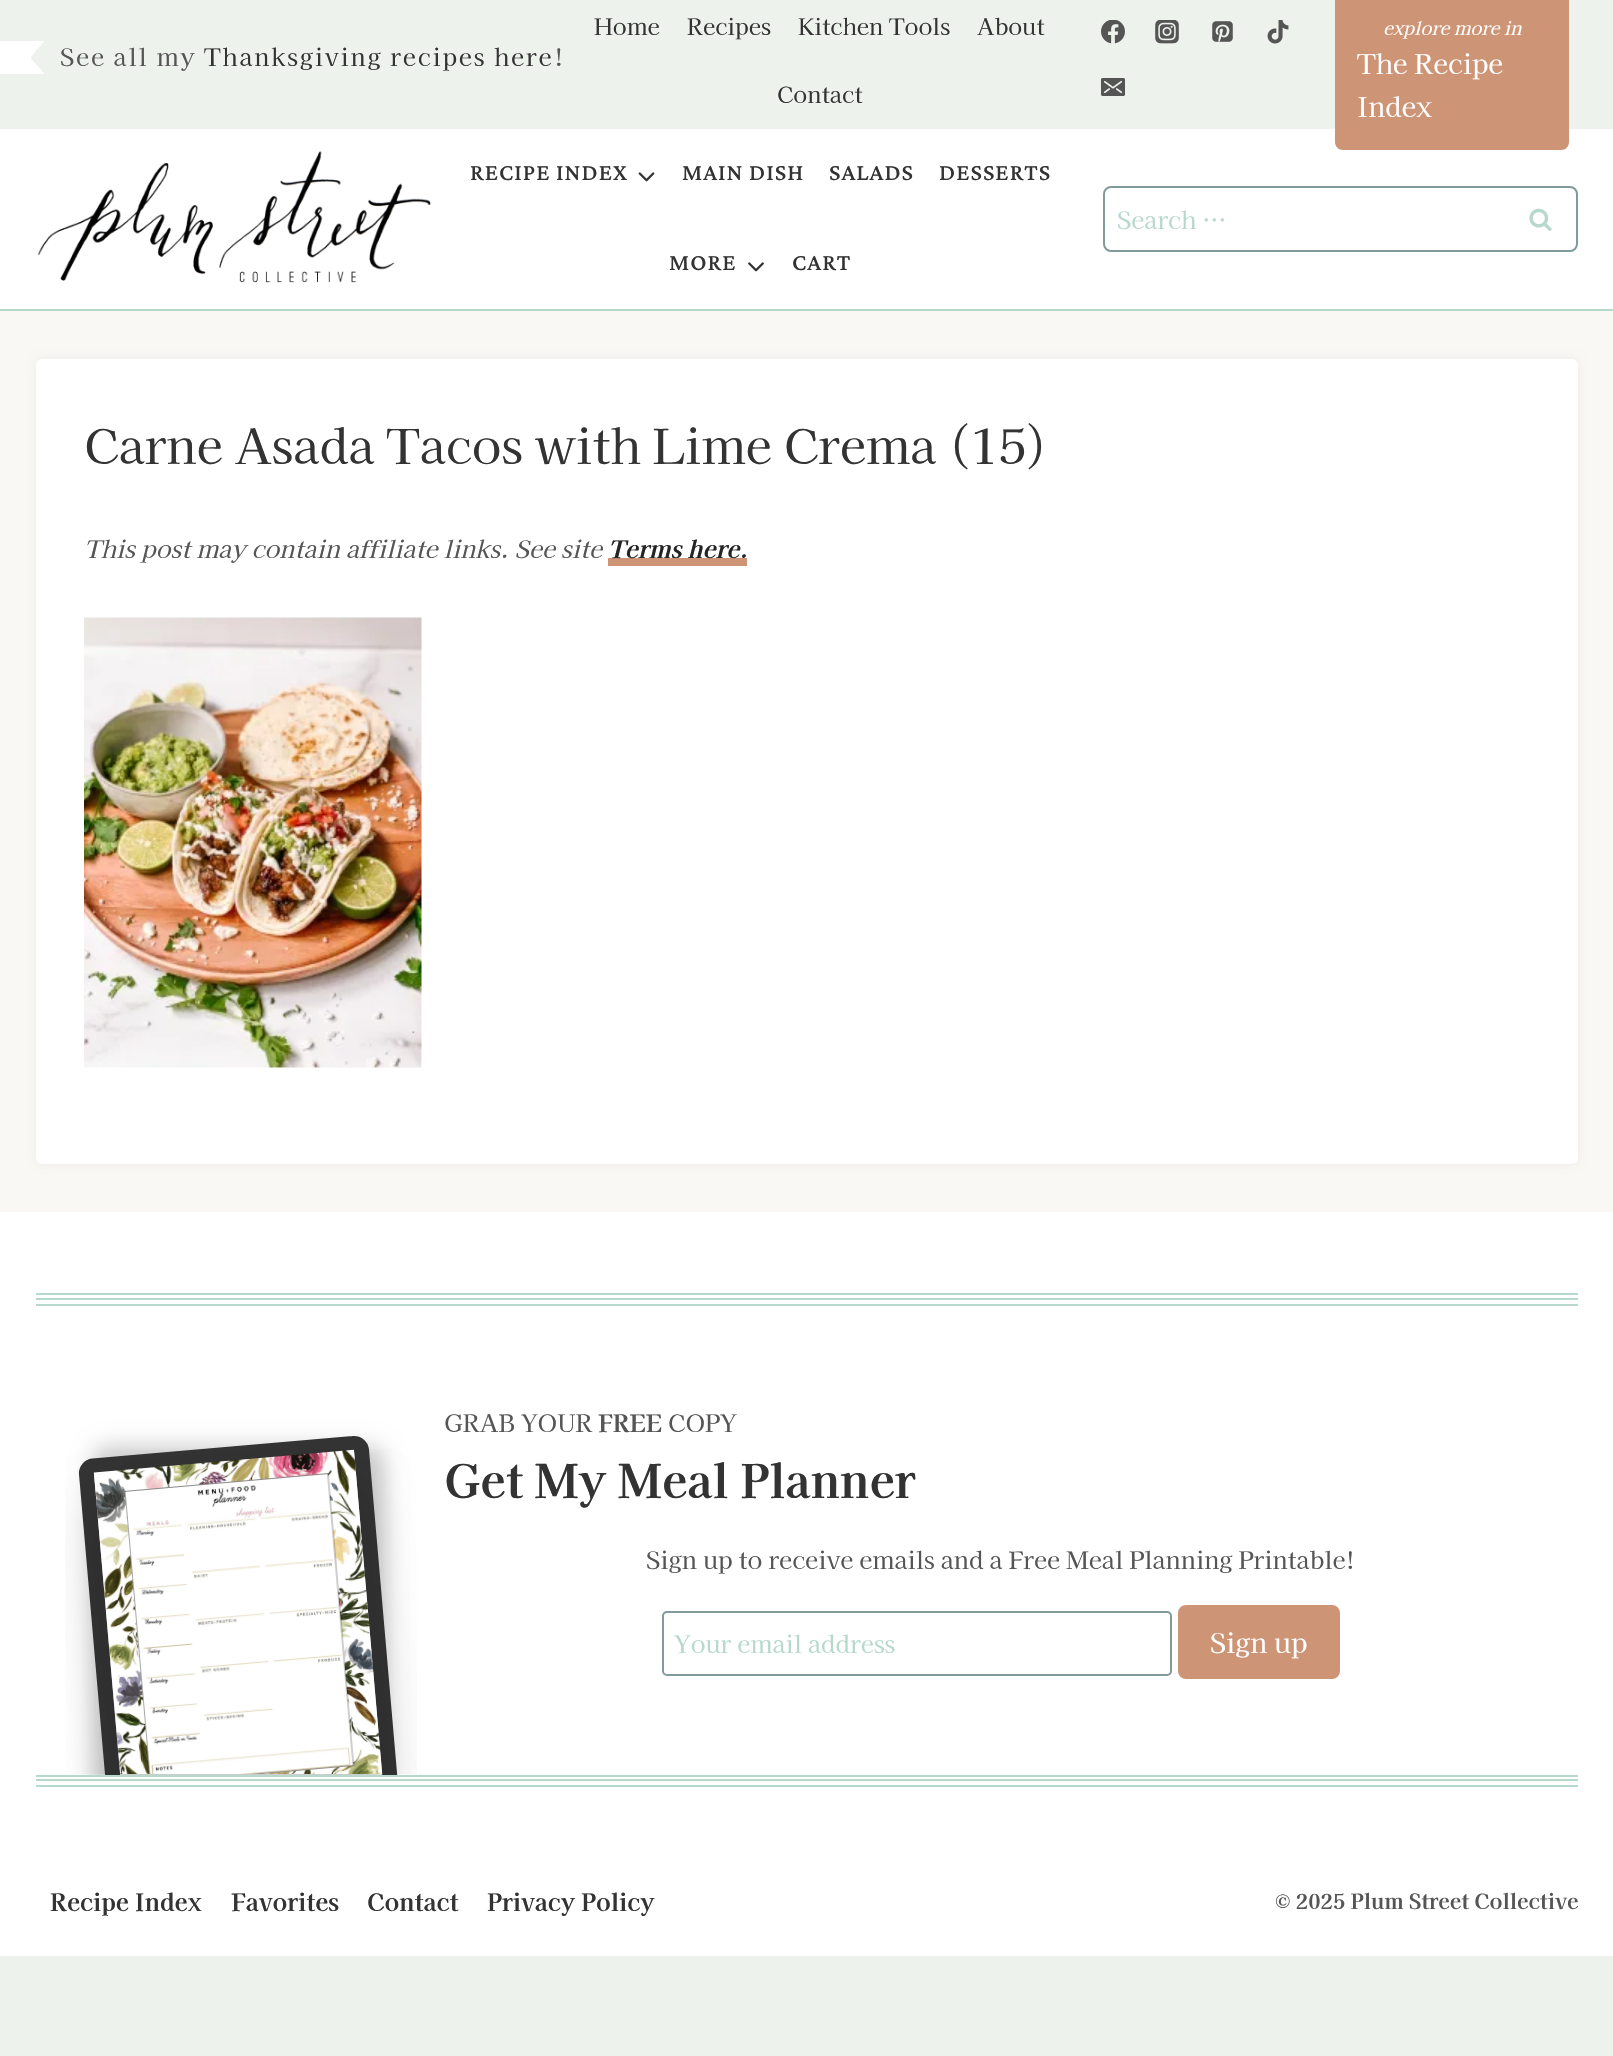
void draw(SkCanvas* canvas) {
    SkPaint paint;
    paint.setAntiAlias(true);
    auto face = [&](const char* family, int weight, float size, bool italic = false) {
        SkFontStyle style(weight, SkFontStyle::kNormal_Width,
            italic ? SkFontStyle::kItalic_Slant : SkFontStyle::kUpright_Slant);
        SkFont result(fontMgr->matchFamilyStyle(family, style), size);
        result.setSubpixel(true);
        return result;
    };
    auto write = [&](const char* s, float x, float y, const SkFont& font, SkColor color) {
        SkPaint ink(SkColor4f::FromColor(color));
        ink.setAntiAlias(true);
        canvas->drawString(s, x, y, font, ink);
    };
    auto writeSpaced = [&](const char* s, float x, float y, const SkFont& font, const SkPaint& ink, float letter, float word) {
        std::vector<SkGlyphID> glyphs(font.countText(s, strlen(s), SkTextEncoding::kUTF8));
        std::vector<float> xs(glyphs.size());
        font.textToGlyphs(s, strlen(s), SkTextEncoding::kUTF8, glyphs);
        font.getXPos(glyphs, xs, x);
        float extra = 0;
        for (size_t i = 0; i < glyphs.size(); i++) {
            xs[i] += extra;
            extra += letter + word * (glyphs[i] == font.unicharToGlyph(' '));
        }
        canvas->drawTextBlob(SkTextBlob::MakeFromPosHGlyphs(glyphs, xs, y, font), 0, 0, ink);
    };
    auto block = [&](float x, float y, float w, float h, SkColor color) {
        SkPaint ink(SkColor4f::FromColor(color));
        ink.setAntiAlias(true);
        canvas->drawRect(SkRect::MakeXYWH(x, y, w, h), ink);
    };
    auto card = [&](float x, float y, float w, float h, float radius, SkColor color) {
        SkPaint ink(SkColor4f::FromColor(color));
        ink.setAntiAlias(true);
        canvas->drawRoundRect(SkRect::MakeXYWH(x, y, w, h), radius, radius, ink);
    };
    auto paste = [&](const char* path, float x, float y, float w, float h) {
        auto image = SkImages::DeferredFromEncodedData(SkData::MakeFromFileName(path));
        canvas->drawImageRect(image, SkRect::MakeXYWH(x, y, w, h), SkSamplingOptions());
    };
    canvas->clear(SkColorSetRGB(250, 248, 244));
    block(0, 129, 1613, 180, SK_ColorWHITE);
    block(0, 0, 1613, 129, SkColorSetRGB(237, 242, 237));
    canvas->save();
    canvas->clipRect(SkRect::MakeXYWH(0, 41, 45, 33));
    paint.setColor(SK_ColorWHITE);
    canvas->drawPath(SkPathBuilder().moveTo(44, 42).cubicTo(42, 44, 31, 56, 31, 58).cubicTo(32, 61, 45, 72, 44, 74).cubicTo(43, 74, 4, 74, 0, 74).lineTo(0, 40).lineTo(43, 40).cubicTo(44, 41, 44, 42, 44, 42).close().detach(), paint);
    canvas->restore();
    auto kFont1 = face("Kaisei Opti", 400, 24);
    paint.setColor(SkColorSetRGB(85, 85, 85));
    writeSpaced("See all my", 60, 66, kFont1, paint, 1.8f, 0);
    paint.setColor(SkColorSetRGB(51, 51, 51));
    writeSpaced("Thanksgiving recipes here", 204, 66, kFont1, paint, 1.8f, 0);
    paint.setColor(SkColorSetRGB(85, 85, 85));
    writeSpaced("!", 554, 66, kFont1, paint, 1.8f, 0);
    auto kFont2 = face("Kaisei Opti", 400, 22.5f);
    write("Home", 594, 35, kFont2, SkColorSetRGB(51, 51, 51));
    write("Recipes", 687, 35, kFont2, SkColorSetRGB(51, 51, 51));
    write("Kitchen Tools", 798, 35, kFont2, SkColorSetRGB(51, 51, 51));
    write("About", 977, 35, kFont2, SkColorSetRGB(51, 51, 51));
    write("Contact", 777, 103, kFont2, SkColorSetRGB(51, 51, 51));
    paste("pic1.png", 1101, 20, 24, 24);
    paste("pic2.png", 1155, 20, 24, 24);
    paste("pic3.png", 1212, 21, 21, 21);
    paste("pic4.png", 1267, 20, 22, 24);
    paste("pic5.png", 1101, 78, 24, 18);
    paint.setColor(SkColorSetRGB(205, 149, 117));
    canvas->drawPath(SkPathBuilder().moveTo(1335, -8).lineTo(1569, -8).lineTo(1569, 142).cubicTo(1569, 146.5f, 1565.5f, 150, 1561, 150).lineTo(1343, 150).cubicTo(1338.5f, 150, 1335, 146.5f, 1335, 142).close().detach(), paint);
    auto kFont3 = face("Kaisei Opti", 400, 18, true);
    write("explore more in", 1383, 35, kFont3, SK_ColorWHITE);
    auto kFont4 = face("Kaisei Opti", 400, 27);
    write("The Recipe", 1357, 74, kFont4, SK_ColorWHITE);
    write("Index", 1357, 117, kFont4, SK_ColorWHITE);
    block(0, 309, 1613, 2, SkColorSetRGB(183, 217, 204));
    paste("pic6.png", 37, 151, 394, 132);
    auto kFont5 = face("Lateef", 400, 30);
    paint.setColor(SkColorSetRGB(51, 51, 51));
    writeSpaced("RECIPE INDEX", 470, 180, kFont5, paint, 1, 0);
    paste("pic7.png", 638, 172, 17, 10);
    writeSpaced("MAIN DISH", 682, 180, kFont5, paint, 1, 0);
    writeSpaced("SALADS", 829, 180, kFont5, paint, 1, 0);
    writeSpaced("DESSERTS", 939, 180, kFont5, paint, 1, 0);
    writeSpaced("MORE", 669, 270, kFont5, paint, 1, 0);
    paste("pic8.png", 748, 262, 16, 10);
    writeSpaced("CART", 792, 270, kFont5, paint, 1, 0);
    paint.setStyle(SkPaint::kStroke_Style);
    paint.setStrokeWidth(2);
    paint.setColor(SkColorSetRGB(129, 155, 154));
    canvas->drawRoundRect(SkRect::MakeXYWH(1104, 187, 473, 64), 7, 7, paint);
    write("Search …", 1117, 229, kFont1, SkColorSetRGB(183, 217, 204));
    paste("pic9.png", 1529, 208, 23, 23);
    paint.setStyle(SkPaint::kFill_Style);
    paint.setColor(SkColorSetARGB(13, 0, 0, 0));
    paint.setMaskFilter(SkMaskFilter::MakeBlur(kNormal_SkBlurStyle, 5));
    canvas->drawRoundRect(SkRect::MakeXYWH(36, 359, 1542, 805), 6, 6, paint);
    paint.setMaskFilter(nullptr);
    card(36, 359, 1542, 805, 6, SK_ColorWHITE);
    auto kFont6 = face("Kaisei Opti", 400, 48);
    write("Carne Asada Tacos with Lime Crema (15)", 84, 464, kFont6, SkColorSetRGB(51, 51, 51));
    auto kFont7 = face("Kaisei Opti", 400, 24, true);
    write("This post may contain affiliate links. See site", 84, 558, kFont7, SkColorSetRGB(85, 85, 85));
    block(608, 558, 139, 8, SkColorSetRGB(205, 149, 117));
    auto kFont8 = face("Kaisei Opti", 700, 24, true);
    write("Terms here.", 608, 558, kFont8, SkColorSetRGB(36, 36, 36));
    paste("pic10.png", 84, 617, 338, 451);
    block(0, 1212, 1613, 744, SK_ColorWHITE);
    block(36, 1293, 1542, 2, SkColorSetRGB(183, 217, 204));
    block(36, 1304, 1542, 2, SkColorSetRGB(183, 217, 204));
    block(36, 1298, 1542, 2, SkColorSetRGB(183, 217, 204));
    canvas->save();
    canvas->clipRect(SkRect::MakeXYWH(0, 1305, 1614, 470));
    paint.setColor(SkColorSetARGB(51, 0, 0, 0));
    paint.setMaskFilter(SkMaskFilter::MakeBlur(kNormal_SkBlurStyle, 10.5f));
    canvas->drawRoundRect(SkRect::MakeXYWH(93, 1446, 291, 366), 15, 15, paint);
    paint.setMaskFilter(nullptr);
    canvas->restore();
    canvas->save();
    canvas->clipRect(SkRect::MakeXYWH(0, 1305, 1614, 470));
    paint.setStyle(SkPaint::kStroke_Style);
    paint.setStrokeWidth(15);
    paint.setColor(SkColorSetRGB(51, 51, 51));
    canvas->drawPath(SkPathBuilder().moveTo(93, 1466).lineTo(353, 1443.5f).cubicTo(357.5f, 1443, 361, 1446, 361.5f, 1450).lineTo(390.5f, 1784.5f).cubicTo(391, 1789, 388, 1792.5f, 384, 1793).lineTo(124, 1815.5f).cubicTo(119.5f, 1816, 116, 1813, 115.5f, 1808.5f).lineTo(86.5f, 1474).cubicTo(86, 1470, 89, 1466.5f, 93, 1466).close().detach(), paint);
    canvas->restore();
    paste("pic11.png", 65, 1449, 352, 325);
    write("GRAB YOUR", 444, 1432, kFont1, SkColorSetRGB(85, 85, 85));
    auto kFont9 = face("Kaisei Opti", 700, 24);
    write("FREE", 598, 1432, kFont9, SkColorSetRGB(85, 85, 85));
    write("COPY", 668, 1432, kFont1, SkColorSetRGB(85, 85, 85));
    auto kFont10 = face("Kaisei Opti", 700, 46.5f);
    write("Get My Meal Planner", 444, 1498, kFont10, SkColorSetRGB(51, 51, 51));
    write("Sign up to receive emails and a Free Meal Planning Printable!", 646, 1569, kFont1, SkColorSetRGB(85, 85, 85));
    paint.setStrokeWidth(2);
    paint.setColor(SkColorSetRGB(129, 155, 154));
    canvas->drawRoundRect(SkRect::MakeXYWH(663, 1612, 508, 63), 4, 4, paint);
    write("Your email address", 674, 1653, kFont1, SkColorSetRGB(183, 217, 204));
    paint.setStyle(SkPaint::kFill_Style);
    paint.setColor(SkColorSetRGB(205, 149, 117));
    canvas->drawRoundRect(SkRect::MakeXYWH(1179.5f, 1606.5f, 159, 71), 6.5f, 6.5f, paint);
    paint.setStyle(SkPaint::kStroke_Style);
    paint.setStrokeWidth(3);
    canvas->drawRoundRect(SkRect::MakeXYWH(1179.5f, 1606.5f, 159, 71), 6.5f, 6.5f, paint);
    write("Sign up", 1210, 1653, kFont4, SK_ColorWHITE);
    block(36, 1775, 1542, 2, SkColorSetRGB(183, 217, 204));
    block(36, 1785, 1542, 2, SkColorSetRGB(183, 217, 204));
    block(36, 1779, 1542, 2, SkColorSetRGB(183, 217, 204));
    write("Recipe Index", 50, 1911, kFont9, SkColorSetRGB(51, 51, 51));
    write("Favorites", 231, 1911, kFont9, SkColorSetRGB(51, 51, 51));
    write("Contact", 367, 1911, kFont9, SkColorSetRGB(51, 51, 51));
    write("Privacy Policy", 487, 1911, kFont9, SkColorSetRGB(51, 51, 51));
    auto kFont11 = face("Kaisei Opti", 700, 21);
    write("© 2025 Plum Street Collective", 1275, 1909, kFont11, SkColorSetRGB(85, 85, 85));
    block(0, 1956, 1613, 100, SkColorSetRGB(237, 242, 237));
}
